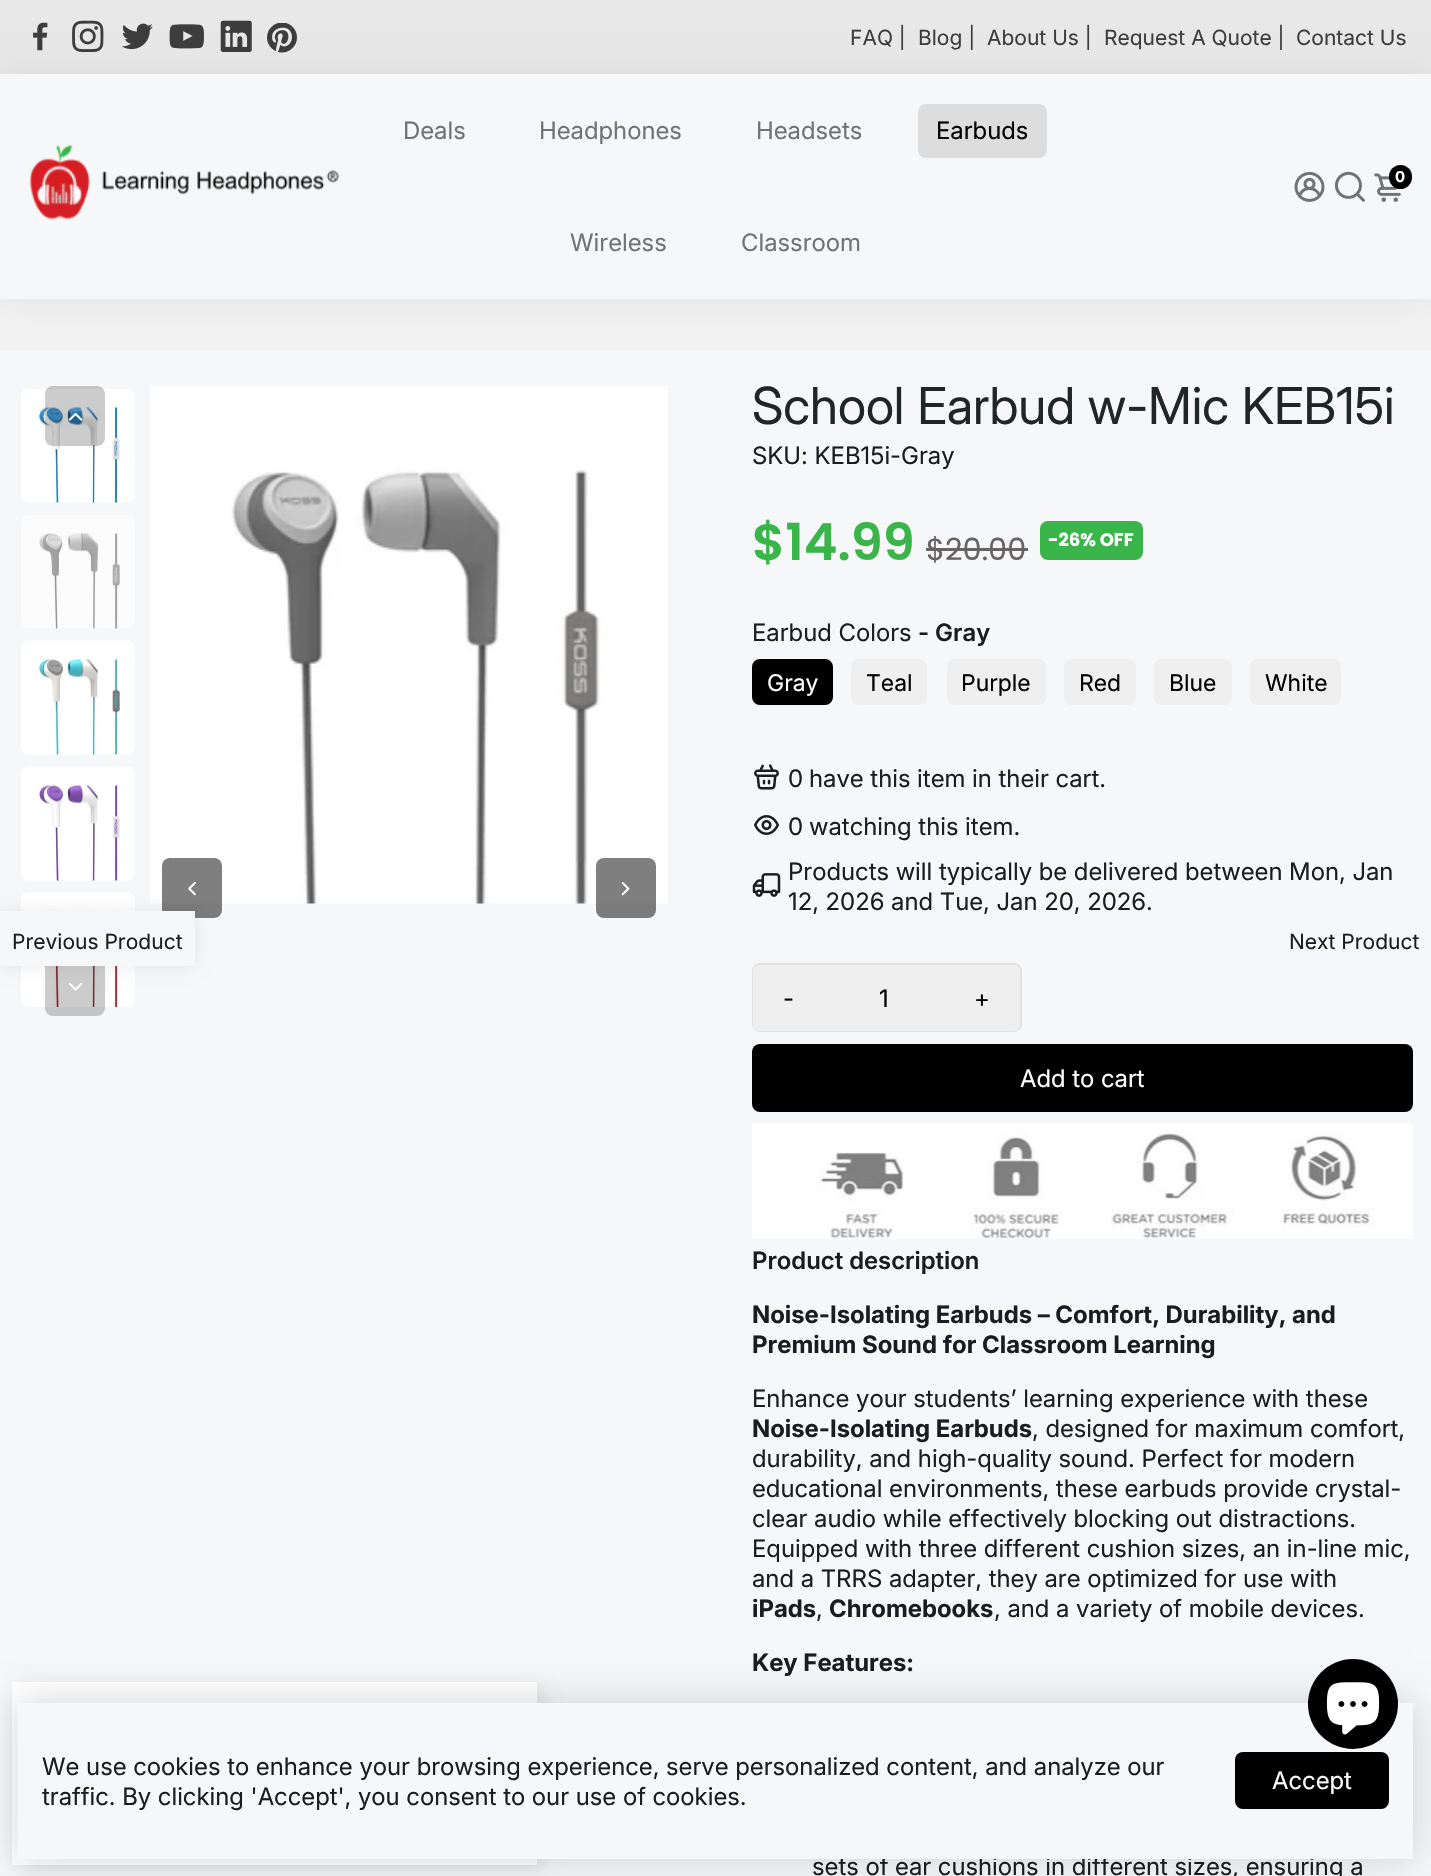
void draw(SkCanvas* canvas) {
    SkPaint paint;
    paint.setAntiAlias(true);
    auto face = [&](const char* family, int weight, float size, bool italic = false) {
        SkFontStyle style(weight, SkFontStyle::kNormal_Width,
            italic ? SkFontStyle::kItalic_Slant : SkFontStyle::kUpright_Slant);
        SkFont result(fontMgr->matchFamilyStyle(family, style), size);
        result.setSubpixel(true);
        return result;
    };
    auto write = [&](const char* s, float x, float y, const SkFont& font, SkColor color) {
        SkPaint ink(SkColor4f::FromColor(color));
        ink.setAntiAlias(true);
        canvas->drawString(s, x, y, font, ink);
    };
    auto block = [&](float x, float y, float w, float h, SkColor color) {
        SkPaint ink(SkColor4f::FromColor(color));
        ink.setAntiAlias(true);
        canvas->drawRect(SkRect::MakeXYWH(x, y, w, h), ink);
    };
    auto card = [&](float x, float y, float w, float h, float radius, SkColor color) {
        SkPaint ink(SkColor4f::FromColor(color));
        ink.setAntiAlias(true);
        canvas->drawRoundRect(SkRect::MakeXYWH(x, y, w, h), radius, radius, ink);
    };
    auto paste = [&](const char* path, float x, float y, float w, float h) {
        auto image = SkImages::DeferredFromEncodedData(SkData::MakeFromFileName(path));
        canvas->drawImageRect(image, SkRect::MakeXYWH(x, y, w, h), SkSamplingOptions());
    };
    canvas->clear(SkColorSetRGB(246, 247, 248));
    block(0, 0, 1431, 74, SkColorSetRGB(232, 232, 232));
    paste("pic1.png", 33, 22, 15, 29);
    paste("pic2.png", 72, 20, 32, 32);
    paste("pic3.png", 121, 23, 32, 27);
    paste("pic4.png", 169, 24, 35, 25);
    paste("pic5.png", 220, 20, 32, 32);
    paste("pic6.png", 267, 23, 30, 30);
    auto kFont1 = face("Inter", 400, 21);
    write("FAQ |", 850, 45, kFont1, SkColorSetRGB(61, 61, 61));
    write("Blog |", 918, 45, kFont1, SkColorSetRGB(61, 61, 61));
    write("About Us |", 987, 45, kFont1, SkColorSetRGB(61, 61, 61));
    write("Request A Quote |", 1104, 45, kFont1, SkColorSetRGB(61, 61, 61));
    write("Contact Us", 1296, 45, kFont1, SkColorSetRGB(61, 61, 61));
    block(0, 299, 1431, 51, SkColorSetRGB(242, 242, 242));
    paint.setColor(SkColorSetARGB(15, 0, 0, 0));
    paint.setMaskFilter(SkMaskFilter::MakeBlur(kNormal_SkBlurStyle, 15));
    canvas->drawRect(SkRect::MakeXYWH(0, 74, 1431, 225), paint);
    paint.setMaskFilter(nullptr);
    block(0, 74, 1431, 225, SkColorSetRGB(246, 247, 248));
    paste("pic7.png", 30, 145, 309, 75);
    auto kFont2 = face("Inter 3", 400, 24);
    write("Deals", 403, 139, kFont2, SkColorSetRGB(114, 114, 114));
    write("Headphones", 539, 139, kFont2, SkColorSetRGB(114, 114, 114));
    write("Headsets", 756, 139, kFont2, SkColorSetRGB(114, 114, 114));
    card(918, 104, 129, 54, 8, SkColorSetARGB(26, 0, 0, 0));
    write("Earbuds", 936, 139, kFont2, SK_ColorBLACK);
    write("Wireless", 570, 251, kFont2, SkColorSetRGB(114, 114, 114));
    write("Classroom", 741, 251, kFont2, SkColorSetRGB(114, 114, 114));
    paste("pic8.png", 1294, 171, 31, 31);
    paste("pic9.png", 1335, 171, 30, 31);
    paste("pic10.png", 1374, 173, 27, 29);
    card(1389, 165, 23, 24, 11.5f, SK_ColorBLACK);
    auto kFont3 = face("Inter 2", 700, 15);
    write("0", 1395, 182, kFont3, SK_ColorWHITE);
    paste("pic12.png", 150, 386, 518, 518);
    card(162, 858, 60, 60, 8, SkColorSetARGB(128, 0, 0, 0));
    paste("pic13.png", 188, 882, 8, 14);
    paste("pic19.png", 21, 892, 114, 115);
    card(45, 956, 60, 60, 8, SkColorSetARGB(51, 0, 0, 0));
    paste("pic20.png", 69, 983, 14, 8);
    paint.setColor(SkColorSetARGB(20, 0, 0, 0));
    paint.setMaskFilter(SkMaskFilter::MakeBlur(kNormal_SkBlurStyle, 7.5f));
    canvas->drawRect(SkRect::MakeXYWH(0, 911, 195, 55), paint);
    paint.setMaskFilter(nullptr);
    block(0, 911, 195, 55, SkColorSetRGB(246, 247, 248));
    write("Previous Product", 12, 949, kFont1, SkColorSetRGB(25, 29, 33));
    paste("pic15.png", 21, 389, 114, 114);
    card(45, 386, 60, 60, 8, SkColorSetARGB(51, 0, 0, 0));
    paste("pic11.png", 68, 413, 15, 8);
    block(667, 386, 1, 517, SK_ColorWHITE);
    card(596, 858, 60, 60, 8, SkColorSetARGB(128, 0, 0, 0));
    paste("pic14.png", 621, 882, 9, 14);
    paste("pic16.png", 21, 515, 114, 114);
    paste("pic17.png", 21, 640, 114, 115);
    paste("pic18.png", 21, 766, 114, 115);
    auto kFont4 = face("Inter 2", 400, 51);
    write("School Earbud w-Mic KEB15i", 752, 424, kFont4, SkColorSetRGB(32, 38, 38));
    write("SKU: KEB15i-Gray", 752, 464, kFont2, SkColorSetRGB(25, 29, 33));
    auto kFont5 = face("Poppins", 600, 51);
    write("$14.99", 752, 560, kFont5, SkColorSetRGB(58, 181, 74));
    auto kFont6 = face("Poppins", 400, 30.5f);
    write("$20.00", 926, 560, kFont6, SkColorSetRGB(104, 99, 99));
    block(926, 548, 102, 3, SkColorSetRGB(104, 99, 99));
    card(1040, 521, 103, 39, 8, SkColorSetRGB(58, 181, 74));
    auto kFont7 = face("Poppins", 700, 18);
    write("-26% OFF", 1048, 546, kFont7, SK_ColorWHITE);
    write("Earbud Colors", 752, 641, kFont2, SkColorSetRGB(25, 29, 33));
    auto kFont8 = face("Inter", 600, 24);
    write("- Gray", 918, 641, kFont8, SkColorSetRGB(25, 29, 33));
    paint.setColor(SK_ColorBLACK);
    canvas->drawRoundRect(SkRect::MakeXYWH(753.5f, 660.5f, 78, 43), 6.5f, 6.5f, paint);
    paint.setStyle(SkPaint::kStroke_Style);
    paint.setStrokeWidth(3);
    canvas->drawRoundRect(SkRect::MakeXYWH(753.5f, 660.5f, 78, 43), 6.5f, 6.5f, paint);
    auto kFont9 = face("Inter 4", 400, 23);
    write("Gray", 767, 691, kFont9, SK_ColorWHITE);
    card(851, 659, 76, 46, 8, SkColorSetRGB(239, 239, 239));
    write("Teal", 866, 691, kFont9, SK_ColorBLACK);
    card(947, 659, 99, 46, 8, SkColorSetRGB(239, 239, 239));
    write("Purple", 961, 691, kFont9, SK_ColorBLACK);
    card(1064, 659, 72, 46, 8, SkColorSetRGB(239, 239, 239));
    write("Red", 1079, 691, kFont9, SK_ColorBLACK);
    card(1154, 659, 78, 46, 8, SkColorSetRGB(239, 239, 239));
    write("Blue", 1169, 691, kFont9, SK_ColorBLACK);
    card(1250, 659, 91, 46, 8, SkColorSetRGB(239, 239, 239));
    write("White", 1265, 691, kFont9, SK_ColorBLACK);
    paste("pic21.png", 754, 764, 25, 26);
    write("0", 788, 787, kFont2, SkColorSetRGB(25, 29, 33));
    write("have this item in their cart.", 809, 787, kFont2, SkColorSetRGB(25, 29, 33));
    paste("pic22.png", 754, 815, 25, 20);
    write("0", 788, 835, kFont2, SkColorSetRGB(25, 29, 33));
    write("watching this item.", 809, 835, kFont2, SkColorSetRGB(25, 29, 33));
    paste("pic23.png", 752, 873, 29, 24);
    write("Products will typically be delivered between Mon, Jan", 788, 880, kFont2, SkColorSetRGB(25, 29, 33));
    write("12, 2026 and Tue, Jan 20, 2026.", 788, 910, kFont2, SkColorSetRGB(25, 29, 33));
    paint.setStrokeWidth(2);
    paint.setColor(SkColorSetRGB(226, 226, 226));
    canvas->drawRoundRect(SkRect::MakeXYWH(753, 964, 268, 67), 7, 7, paint);
    paint.setStyle(SkPaint::kFill_Style);
    paint.setColor(SkColorSetRGB(239, 239, 239));
    canvas->drawPath(SkPathBuilder().moveTo(759, 965).lineTo(824, 965).lineTo(824, 1031).lineTo(759, 1031).cubicTo(755.5f, 1031, 753, 1028.5f, 753, 1025).lineTo(753, 971).cubicTo(753, 967.5f, 755.5f, 965, 759, 965).close().detach(), paint);
    write("-", 783, 1007, kFont2, SK_ColorBLACK);
    block(824, 965, 120, 66, SkColorSetRGB(239, 239, 239));
    write("1", 879, 1007, kFont2, SK_ColorBLACK);
    canvas->drawPath(SkPathBuilder().moveTo(944, 965).lineTo(1014, 965).cubicTo(1017.5f, 965, 1020, 967.5f, 1020, 971).lineTo(1020, 1025).cubicTo(1020, 1028.5f, 1017.5f, 1031, 1014, 1031).lineTo(944, 1031).close().detach(), paint);
    write("+", 974, 1007, kFont2, SK_ColorBLACK);
    card(752, 1044, 661, 68, 8, SK_ColorBLACK);
    write("Add to cart", 1020, 1087, kFont2, SK_ColorWHITE);
    paste("pic24.png", 752, 1123, 662, 116);
    write("Product description", 752, 1269, kFont8, SkColorSetRGB(25, 29, 33));
    auto kFont10 = face("Inter", 700, 24);
    write("Noise-Isolating Earbuds – Comfort, Durability, and", 752, 1323, kFont10, SkColorSetRGB(25, 29, 33));
    write("Premium Sound for Classroom Learning", 752, 1353, kFont10, SkColorSetRGB(25, 29, 33));
    write("Enhance your students’ learning experience with these", 752, 1407, kFont2, SkColorSetRGB(25, 29, 33));
    write("Noise-Isolating Earbuds", 752, 1437, kFont10, SkColorSetRGB(25, 29, 33));
    write(", designed for maximum comfort,", 1032, 1437, kFont2, SkColorSetRGB(25, 29, 33));
    write("durability, and high-quality sound. Perfect for modern", 752, 1467, kFont2, SkColorSetRGB(25, 29, 33));
    write("educational environments, these earbuds provide crystal-", 752, 1497, kFont2, SkColorSetRGB(25, 29, 33));
    write("clear audio while effectively blocking out distractions.", 752, 1527, kFont2, SkColorSetRGB(25, 29, 33));
    write("Equipped with three different cushion sizes, an in-line mic,", 752, 1557, kFont2, SkColorSetRGB(25, 29, 33));
    write("and a TRRS adapter, they are optimized for use with", 752, 1587, kFont2, SkColorSetRGB(25, 29, 33));
    write("iPads", 752, 1617, kFont10, SkColorSetRGB(25, 29, 33));
    write(",", 816, 1617, kFont2, SkColorSetRGB(25, 29, 33));
    write("Chromebooks", 829, 1617, kFont10, SkColorSetRGB(25, 29, 33));
    write(", and a variety of mobile devices.", 994, 1617, kFont2, SkColorSetRGB(25, 29, 33));
    write("Key Features:", 752, 1671, kFont10, SkColorSetRGB(25, 29, 33));
    write("sets of ear cushions in different sizes, ensuring a", 812, 1875, kFont2, SkColorSetRGB(25, 29, 33));
    write("Next Product", 1289, 949, kFont1, SkColorSetRGB(25, 29, 33));
    paint.setColor(SkColorSetARGB(20, 0, 0, 0));
    paint.setMaskFilter(SkMaskFilter::MakeBlur(kNormal_SkBlurStyle, 7.5f));
    canvas->drawRect(SkRect::MakeXYWH(17, 1686, 525, 183), paint);
    paint.setMaskFilter(nullptr);
    block(12, 1682, 525, 183, SK_ColorWHITE);
    paint.setColor(SkColorSetARGB(41, 0, 0, 0));
    paint.setMaskFilter(SkMaskFilter::MakeBlur(kNormal_SkBlurStyle, 18));
    canvas->drawRect(SkRect::MakeXYWH(18, 1703, 1395, 156), paint);
    paint.setMaskFilter(nullptr);
    block(18, 1703, 1395, 156, SkColorSetRGB(246, 247, 248));
    paint.setColor(SK_ColorBLACK);
    canvas->drawCircle(1353, 1704, 45, paint);
    paste("pic25.png", 1326, 1682, 54, 53);
    write("We use cookies to enhance your browsing experience, serve personalized content, and analyze our", 42, 1775, kFont2, SkColorSetRGB(25, 29, 33));
    write("traffic. By clicking 'Accept', you consent to our use of cookies.", 42, 1805, kFont2, SkColorSetRGB(25, 29, 33));
    card(1235, 1752, 154, 57, 8, SK_ColorBLACK);
    write("Accept", 1272, 1789, kFont2, SK_ColorWHITE);
}
